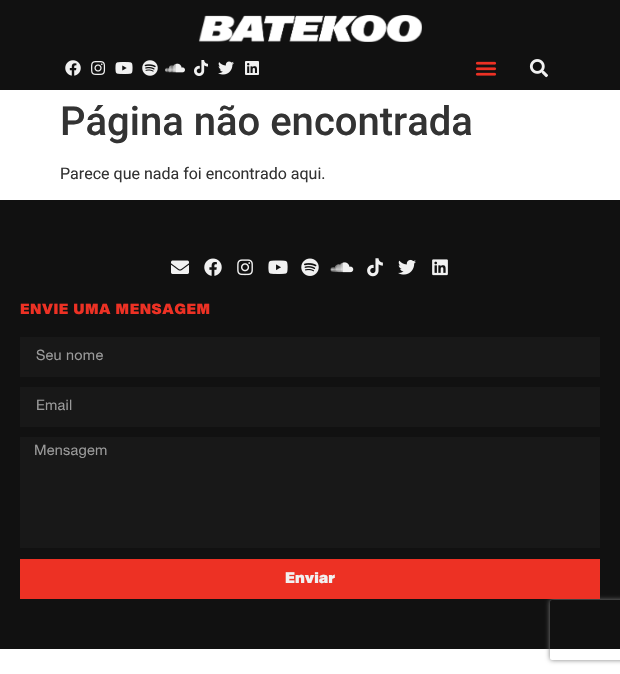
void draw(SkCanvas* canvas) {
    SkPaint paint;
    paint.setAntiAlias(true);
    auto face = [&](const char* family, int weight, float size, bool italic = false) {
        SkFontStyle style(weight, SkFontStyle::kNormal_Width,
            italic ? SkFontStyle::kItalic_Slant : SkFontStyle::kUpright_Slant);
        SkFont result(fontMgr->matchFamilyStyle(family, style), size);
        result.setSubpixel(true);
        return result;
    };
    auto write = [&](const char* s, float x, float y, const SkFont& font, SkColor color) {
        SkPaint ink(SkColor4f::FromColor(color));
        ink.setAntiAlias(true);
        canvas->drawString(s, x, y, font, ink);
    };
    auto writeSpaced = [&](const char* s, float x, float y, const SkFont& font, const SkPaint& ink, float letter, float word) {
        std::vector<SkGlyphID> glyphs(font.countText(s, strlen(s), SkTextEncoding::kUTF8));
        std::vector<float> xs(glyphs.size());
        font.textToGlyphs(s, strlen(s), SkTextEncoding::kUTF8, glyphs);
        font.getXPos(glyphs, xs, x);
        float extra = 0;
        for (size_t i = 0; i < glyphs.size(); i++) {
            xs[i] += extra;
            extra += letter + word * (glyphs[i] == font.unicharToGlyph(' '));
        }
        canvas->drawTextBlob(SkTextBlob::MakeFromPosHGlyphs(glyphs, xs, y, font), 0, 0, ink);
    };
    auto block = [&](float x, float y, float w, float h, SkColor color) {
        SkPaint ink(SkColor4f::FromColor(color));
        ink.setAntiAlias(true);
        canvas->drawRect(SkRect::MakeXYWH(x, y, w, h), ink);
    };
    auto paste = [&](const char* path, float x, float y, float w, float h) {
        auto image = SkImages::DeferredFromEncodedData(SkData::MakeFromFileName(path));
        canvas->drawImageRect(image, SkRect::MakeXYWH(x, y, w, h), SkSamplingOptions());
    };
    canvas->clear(SK_ColorWHITE);
    block(0, 0, 620, 90, SkColorSetRGB(17, 17, 17));
    paste("pic1.png", 198, 15, 224, 27);
    paste("pic2.png", 65, 60, 16, 16);
    paste("pic3.png", 91, 61, 15, 14);
    paste("pic4.png", 115, 62, 18, 12);
    paste("pic5.png", 142, 60, 16, 16);
    paste("pic6.png", 165, 63, 20, 10);
    paste("pic7.png", 194, 60, 14, 16);
    paste("pic8.png", 218, 61, 16, 14);
    paste("pic9.png", 245, 61, 14, 14);
    paste("pic10.png", 475, 61, 22, 15);
    paste("pic11.png", 529, 59, 19, 19);
    auto kFont1 = face("Roboto", 500, 40);
    write("Página não encontrada", 60, 135, kFont1, SkColorSetRGB(51, 51, 51));
    auto kFont2 = face("Roboto", 400, 16);
    write("Parece que nada foi encontrado aqui.", 60, 179, kFont2, SkColorSetRGB(51, 51, 51));
    block(0, 200, 620, 449, SkColorSetRGB(17, 17, 17));
    paste("pic12.png", 171, 260, 18, 14);
    paste("pic13.png", 204, 258, 18, 18);
    paste("pic14.png", 237, 259, 16, 17);
    paste("pic15.png", 268, 260, 20, 14);
    paste("pic16.png", 301, 258, 18, 18);
    paste("pic17.png", 330, 262, 24, 11);
    paste("pic18.png", 367, 258, 16, 19);
    paste("pic19.png", 398, 259, 18, 16);
    paste("pic20.png", 432, 259, 16, 17);
    auto kFont3 = face("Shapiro", 800, 14.4f);
    paint.setColor(SkColorSetRGB(237, 49, 36));
    writeSpaced("ENVIE UMA MENSAGEM", 20, 314, kFont3, paint, 0.5f, 0);
    block(20, 337, 580, 40, SkColorSetRGB(24, 24, 24));
    auto kFont4 = face("Helvetica Neue", 400, 14.4f);
    paint.setColor(SkColorSetRGB(154, 154, 154));
    writeSpaced("Seu nome", 36, 360, kFont4, paint, 0.25f, 0);
    block(20, 387, 580, 40, SkColorSetRGB(24, 24, 24));
    writeSpaced("Email", 36, 410, kFont4, paint, 0.25f, 0);
    block(20, 437, 580, 111, SkColorSetRGB(24, 24, 24));
    writeSpaced("Mensagem", 34, 455, kFont4, paint, 0.25f, 0);
    canvas->save();
    canvas->clipPath(SkPathBuilder(SkPathFillType::kEvenOdd).moveTo(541, 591).lineTo(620, 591).lineTo(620, 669).lineTo(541, 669).close().moveTo(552, 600).lineTo(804, 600).cubicTo(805, 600, 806, 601, 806, 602).lineTo(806, 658).cubicTo(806, 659, 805, 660, 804, 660).lineTo(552, 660).cubicTo(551, 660, 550, 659, 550, 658).lineTo(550, 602).cubicTo(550, 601, 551, 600, 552, 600).close().detach(), true);
    paint.setColor(SkColorSetRGB(128, 128, 128));
    paint.setMaskFilter(SkMaskFilter::MakeBlur(kNormal_SkBlurStyle, 2.5f));
    canvas->drawRoundRect(SkRect::MakeXYWH(550, 600, 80, 60), 2, 2, paint);
    paint.setMaskFilter(nullptr);
    canvas->restore();
    block(20, 559, 580, 40, SkColorSetRGB(237, 49, 36));
    auto kFont5 = face("Shapiro", 800, 15);
    write("Enviar", 285, 583, kFont5, SkColorSetRGB(241, 241, 241));
}
